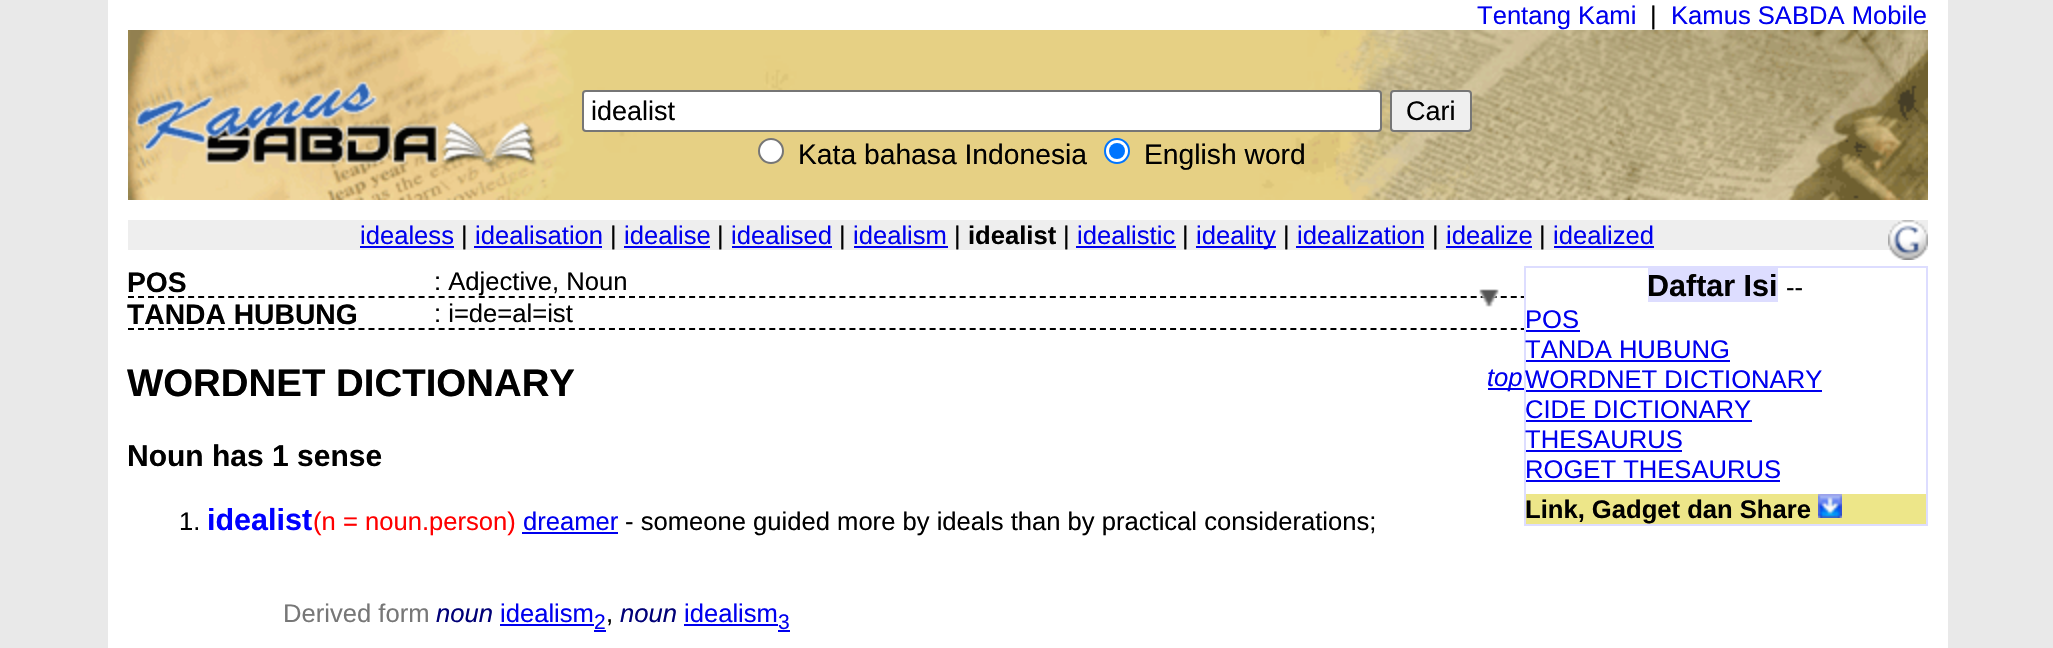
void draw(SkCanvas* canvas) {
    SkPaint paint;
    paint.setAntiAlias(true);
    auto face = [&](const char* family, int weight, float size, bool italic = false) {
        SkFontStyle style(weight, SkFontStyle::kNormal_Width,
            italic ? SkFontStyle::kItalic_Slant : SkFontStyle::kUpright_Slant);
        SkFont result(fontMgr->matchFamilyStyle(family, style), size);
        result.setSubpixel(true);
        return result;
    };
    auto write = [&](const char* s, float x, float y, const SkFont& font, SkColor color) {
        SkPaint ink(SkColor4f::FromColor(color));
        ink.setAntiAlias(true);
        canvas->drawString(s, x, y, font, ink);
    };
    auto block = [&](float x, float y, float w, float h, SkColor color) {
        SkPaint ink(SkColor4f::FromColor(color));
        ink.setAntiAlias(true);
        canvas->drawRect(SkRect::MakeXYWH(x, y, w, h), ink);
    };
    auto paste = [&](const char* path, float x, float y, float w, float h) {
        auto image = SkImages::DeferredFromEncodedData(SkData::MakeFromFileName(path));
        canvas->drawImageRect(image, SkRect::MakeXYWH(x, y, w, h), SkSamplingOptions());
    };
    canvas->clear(SkColorSetRGB(233, 233, 233));
    block(108, 0, 1840, 648, SK_ColorWHITE);
    auto kFont1 = face("Liberation Sans", 400, 25.6f);
    write("Tentang Kami", 1477, 24, kFont1, SkColorSetRGB(0, 0, 238));
    write("|", 1650, 24, kFont1, SK_ColorBLACK);
    write("Kamus SABDA Mobile", 1671, 24, kFont1, SkColorSetRGB(0, 0, 238));
    paste("pic1.png", 128, 30, 1800, 170);
    paint.setColor(SK_ColorWHITE);
    canvas->drawRoundRect(SkRect::MakeXYWH(583, 91, 798, 40), 3, 3, paint);
    paint.setStyle(SkPaint::kStroke_Style);
    paint.setStrokeWidth(2);
    paint.setColor(SkColorSetRGB(118, 118, 118));
    canvas->drawRoundRect(SkRect::MakeXYWH(583, 91, 798, 40), 3, 3, paint);
    auto kFont2 = face("Liberation Sans", 400, 27);
    write("idealist", 591, 120, kFont2, SK_ColorBLACK);
    paint.setStyle(SkPaint::kFill_Style);
    paint.setColor(SkColorSetRGB(239, 239, 239));
    canvas->drawRoundRect(SkRect::MakeXYWH(1391, 91, 80, 40), 3, 3, paint);
    paint.setStyle(SkPaint::kStroke_Style);
    paint.setColor(SkColorSetRGB(118, 118, 118));
    canvas->drawRoundRect(SkRect::MakeXYWH(1391, 91, 80, 40), 3, 3, paint);
    write("Cari", 1406, 120, kFont2, SK_ColorBLACK);
    paint.setStyle(SkPaint::kFill_Style);
    paint.setColor(SK_ColorWHITE);
    canvas->drawCircle(771, 151, 12, paint);
    paint.setStyle(SkPaint::kStroke_Style);
    paint.setColor(SkColorSetRGB(118, 118, 118));
    canvas->drawCircle(771, 151, 12, paint);
    auto kFont3 = face("Liberation Sans", 400, 28.25f);
    write("Kata bahasa Indonesia", 798, 164, kFont3, SK_ColorBLACK);
    paint.setStyle(SkPaint::kFill_Style);
    paint.setColor(SK_ColorWHITE);
    canvas->drawCircle(1117, 151, 12, paint);
    paint.setStyle(SkPaint::kStroke_Style);
    paint.setColor(SkColorSetRGB(0, 117, 255));
    canvas->drawCircle(1117, 151, 12, paint);
    paint.setStyle(SkPaint::kFill_Style);
    canvas->drawCircle(1117, 151, 8, paint);
    write("English word", 1144, 164, kFont3, SK_ColorBLACK);
    block(128, 220, 1800, 30, SkColorSetRGB(238, 238, 238));
    write("idealess", 360, 244, kFont1, SkColorSetRGB(0, 0, 238));
    block(360, 246, 94, 2, SkColorSetRGB(0, 0, 238));
    write("|", 461, 244, kFont1, SK_ColorBLACK);
    write("idealisation", 475, 244, kFont1, SkColorSetRGB(0, 0, 238));
    block(474, 246, 128, 2, SkColorSetRGB(0, 0, 238));
    write("|", 610, 244, kFont1, SK_ColorBLACK);
    write("idealise", 624, 244, kFont1, SkColorSetRGB(0, 0, 238));
    block(624, 246, 86, 2, SkColorSetRGB(0, 0, 238));
    write("|", 717, 244, kFont1, SK_ColorBLACK);
    write("idealised", 731, 244, kFont1, SkColorSetRGB(0, 0, 238));
    block(732, 246, 100, 2, SkColorSetRGB(0, 0, 238));
    write("|", 839, 244, kFont1, SK_ColorBLACK);
    write("idealism", 853, 244, kFont1, SkColorSetRGB(0, 0, 238));
    block(854, 246, 94, 2, SkColorSetRGB(0, 0, 238));
    write("|", 954, 244, kFont1, SK_ColorBLACK);
    auto kFont4 = face("Liberation Sans", 700, 25.6f);
    write("idealist", 968, 244, kFont4, SK_ColorBLACK);
    write("|", 1063, 244, kFont1, SK_ColorBLACK);
    write("idealistic", 1077, 244, kFont1, SkColorSetRGB(0, 0, 238));
    block(1076, 246, 100, 2, SkColorSetRGB(0, 0, 238));
    write("|", 1182, 244, kFont1, SK_ColorBLACK);
    block(1196, 246, 80, 2, SkColorSetRGB(0, 0, 238));
    write("ideality", 1196, 244, kFont1, SkColorSetRGB(0, 0, 238));
    write("|", 1283, 244, kFont1, SK_ColorBLACK);
    write("idealization", 1297, 244, kFont1, SkColorSetRGB(0, 0, 238));
    block(1296, 246, 128, 2, SkColorSetRGB(0, 0, 238));
    write("|", 1432, 244, kFont1, SK_ColorBLACK);
    write("idealize", 1446, 244, kFont1, SkColorSetRGB(0, 0, 238));
    block(1446, 246, 86, 2, SkColorSetRGB(0, 0, 238));
    write("|", 1539, 244, kFont1, SK_ColorBLACK);
    write("idealized", 1553, 244, kFont1, SkColorSetRGB(0, 0, 238));
    block(1554, 246, 100, 2, SkColorSetRGB(0, 0, 238));
    paste("pic2.png", 1888, 220, 40, 40);
    paint.setStyle(SkPaint::kStroke_Style);
    paint.setColor(SK_ColorBLACK);
    paint.setPathEffect(SkDashPathEffect::Make({{6, 4.02f}}, 0));
    canvas->drawPath(SkPathBuilder().moveTo(128, 297).lineTo(1928, 297).detach(), paint);
    paint.setPathEffect(nullptr);
    auto kFont5 = face("Liberation Sans", 700, 28.25f);
    write("POS", 127, 292, kFont5, SK_ColorBLACK);
    write(": Adjective, Noun", 434, 290, kFont1, SK_ColorBLACK);
    paint.setPathEffect(SkDashPathEffect::Make({{6, 4.02f}}, 0));
    canvas->drawPath(SkPathBuilder().moveTo(128, 329).lineTo(1928, 329).detach(), paint);
    paint.setPathEffect(nullptr);
    write("TANDA HUBUNG", 127, 324, kFont5, SK_ColorBLACK);
    write(": i=de=al=ist", 434, 322, kFont1, SK_ColorBLACK);
    auto kFont6 = face("Liberation Sans", 700, 38.4f);
    write("WORDNET DICTIONARY", 127, 396, kFont6, SK_ColorBLACK);
    block(1488, 388, 36, 2, SkColorSetRGB(0, 0, 238));
    auto kFont7 = face("Liberation Sans", 400, 25.6f, true);
    write("top", 1487, 386, kFont7, SkColorSetRGB(0, 0, 238));
    auto kFont8 = face("Liberation Sans", 700, 30);
    write("Noun has 1 sense", 127, 466, kFont8, SK_ColorBLACK);
    write("1.", 179, 530, kFont1, SK_ColorBLACK);
    auto kFont9 = face("Liberation Sans", 700, 30.5f);
    write("idealist", 207, 530, kFont9, SkColorSetRGB(0, 0, 255));
    write("(n = noun.person)", 313, 530, kFont1, SkColorSetRGB(255, 0, 0));
    write("dreamer", 523, 530, kFont1, SkColorSetRGB(0, 0, 238));
    block(522, 532, 96, 2, SkColorSetRGB(0, 0, 238));
    write("- someone guided more by ideals than by practical considerations;", 625, 530, kFont1, SK_ColorBLACK);
    write("Derived form", 283, 622, kFont1, SkColorSetRGB(119, 119, 119));
    write("noun", 436, 622, kFont7, SkColorSetRGB(0, 0, 119));
    write("idealism", 500, 622, kFont1, SkColorSetRGB(0, 0, 238));
    auto kFont10 = face("Liberation Sans", 400, 21);
    write("2", 594, 629, kFont10, SkColorSetRGB(0, 0, 238));
    block(500, 624, 94, 2, SkColorSetRGB(0, 0, 238));
    block(594, 630, 12, 2, SkColorSetRGB(0, 0, 238));
    write(",", 606, 622, kFont1, SK_ColorBLACK);
    write("noun", 620, 622, kFont7, SkColorSetRGB(0, 0, 119));
    write("idealism", 684, 622, kFont1, SkColorSetRGB(0, 0, 238));
    write("3", 778, 629, kFont10, SkColorSetRGB(0, 0, 238));
    block(684, 624, 94, 2, SkColorSetRGB(0, 0, 238));
    block(778, 630, 12, 2, SkColorSetRGB(0, 0, 238));
    block(1526, 296, 400, 34, SK_ColorWHITE);
    paint.setColor(SkColorSetRGB(221, 221, 255));
    canvas->drawRect(SkRect::MakeXYWH(1525, 267, 402, 258), paint);
    block(1648, 268, 130, 34, SkColorSetRGB(221, 221, 255));
    write("Daftar Isi", 1647, 296, kFont9, SK_ColorBLACK);
    write("--", 1786, 296, kFont1, SK_ColorBLACK);
    write("POS", 1525, 328, kFont1, SkColorSetRGB(0, 0, 238));
    block(1526, 330, 54, 2, SkColorSetRGB(0, 0, 238));
    write("TANDA HUBUNG", 1525, 358, kFont1, SkColorSetRGB(0, 0, 238));
    block(1526, 360, 204, 2, SkColorSetRGB(0, 0, 238));
    write("WORDNET DICTIONARY", 1525, 388, kFont1, SkColorSetRGB(0, 0, 238));
    block(1526, 390, 296, 2, SkColorSetRGB(0, 0, 238));
    write("CIDE DICTIONARY", 1525, 418, kFont1, SkColorSetRGB(0, 0, 238));
    block(1526, 420, 226, 2, SkColorSetRGB(0, 0, 238));
    write("THESAURUS", 1525, 448, kFont1, SkColorSetRGB(0, 0, 238));
    block(1526, 450, 156, 2, SkColorSetRGB(0, 0, 238));
    write("ROGET THESAURUS", 1525, 478, kFont1, SkColorSetRGB(0, 0, 238));
    block(1526, 480, 254, 2, SkColorSetRGB(0, 0, 238));
    block(1526, 494, 400, 30, SkColorSetRGB(237, 230, 137));
    write("Link, Gadget dan Share", 1525, 518, kFont4, SK_ColorBLACK);
    paste("pic3.png", 1818, 494, 24, 24);
    paste("pic4.png", 1479, 289, 20, 18);
}
